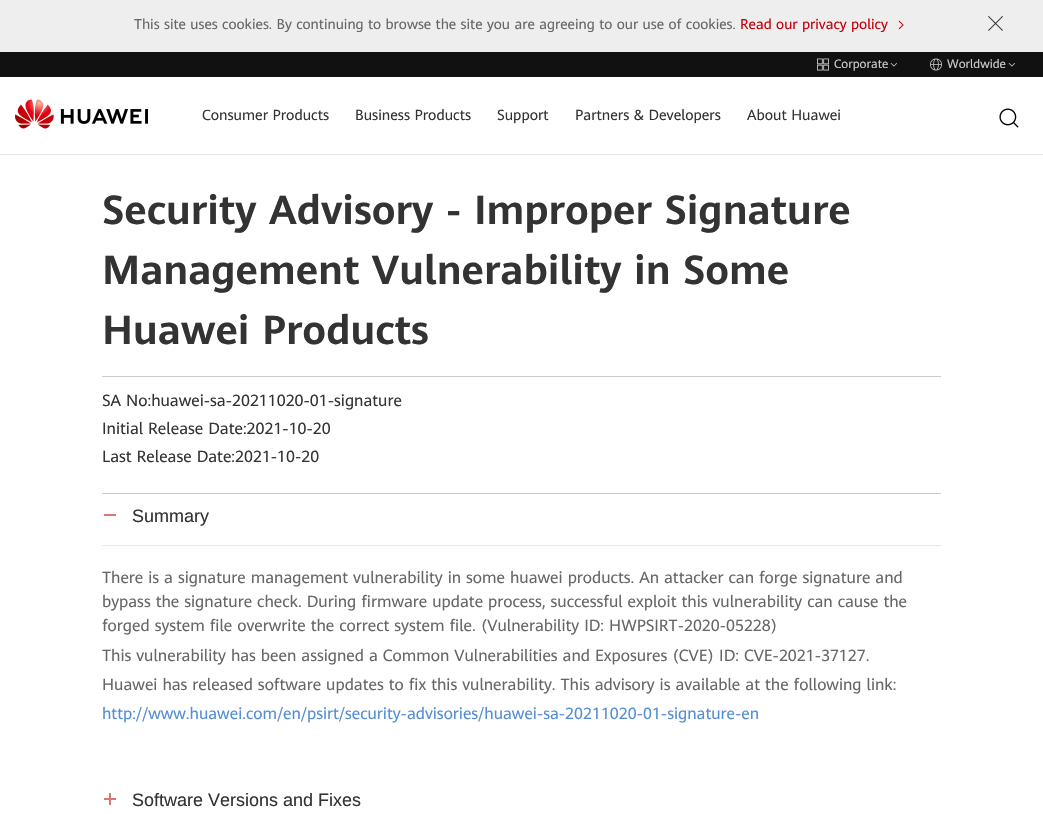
void draw(SkCanvas* canvas) {
    SkPaint paint;
    paint.setAntiAlias(true);
    auto face = [&](const char* family, int weight, float size, bool italic = false) {
        SkFontStyle style(weight, SkFontStyle::kNormal_Width,
            italic ? SkFontStyle::kItalic_Slant : SkFontStyle::kUpright_Slant);
        SkFont result(fontMgr->matchFamilyStyle(family, style), size);
        result.setSubpixel(true);
        return result;
    };
    auto write = [&](const char* s, float x, float y, const SkFont& font, SkColor color) {
        SkPaint ink(SkColor4f::FromColor(color));
        ink.setAntiAlias(true);
        canvas->drawString(s, x, y, font, ink);
    };
    auto block = [&](float x, float y, float w, float h, SkColor color) {
        SkPaint ink(SkColor4f::FromColor(color));
        ink.setAntiAlias(true);
        canvas->drawRect(SkRect::MakeXYWH(x, y, w, h), ink);
    };
    auto paste = [&](const char* path, float x, float y, float w, float h) {
        auto image = SkImages::DeferredFromEncodedData(SkData::MakeFromFileName(path));
        canvas->drawImageRect(image, SkRect::MakeXYWH(x, y, w, h), SkSamplingOptions());
    };
    canvas->clear(SK_ColorWHITE);
    block(0, 0, 1043, 52, SkColorSetRGB(238, 238, 238));
    auto kFont1 = face("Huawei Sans", 400, 14);
    write("This site uses cookies. By continuing to browse the site you are agreeing to our use of cookies.", 134, 29, kFont1, SkColorSetRGB(102, 102, 102));
    write("Read our privacy policy", 740, 29, kFont1, SkColorSetRGB(199, 0, 11));
    paste("pic1.png", 898, 20, 6, 10);
    paste("pic2.png", 988, 16, 15, 15);
    block(0, 52, 1043, 25, SkColorSetRGB(17, 17, 17));
    paste("pic3.png", 817, 58, 12, 13);
    auto kFont2 = face("Huawei Sans", 400, 12);
    write("Corporate", 834, 68, kFont2, SkColorSetRGB(204, 204, 204));
    paste("pic4.png", 890, 62, 7, 5);
    paste("pic5.png", 930, 58, 12, 13);
    write("Worldwide", 947, 68, kFont2, SkColorSetRGB(204, 204, 204));
    paste("pic4.png", 1008, 62, 7, 5);
    block(0, 154, 1043, 1, SkColorSetRGB(230, 230, 230));
    paste("pic6.png", 15, 99, 133, 30);
    auto kFont3 = face("Huawei Sans", 400, 14.4f);
    write("Consumer Products", 202, 120, kFont3, SkColorSetRGB(51, 51, 51));
    write("Business Products", 355, 120, kFont3, SkColorSetRGB(51, 51, 51));
    write("Support", 497, 120, kFont3, SkColorSetRGB(51, 51, 51));
    write("Partners & Developers", 575, 120, kFont3, SkColorSetRGB(51, 51, 51));
    write("About Huawei", 747, 120, kFont3, SkColorSetRGB(51, 51, 51));
    paste("pic7.png", 999, 108, 20, 20);
    block(102, 376, 839, 1, SkColorSetRGB(204, 204, 204));
    auto kFont4 = face("Huawei Sans", 700, 40);
    write("Security Advisory - Improper Signature", 102, 224, kFont4, SkColorSetRGB(51, 51, 51));
    write("Management Vulnerability in Some", 102, 284, kFont4, SkColorSetRGB(51, 51, 51));
    write("Huawei Products", 102, 344, kFont4, SkColorSetRGB(51, 51, 51));
    auto kFont5 = face("Huawei Sans", 400, 16);
    write("SA No:huawei-sa-20211020-01-signature", 102, 406, kFont5, SkColorSetRGB(51, 51, 51));
    write("Initial Release Date:2021-10-20", 102, 434, kFont5, SkColorSetRGB(51, 51, 51));
    write("Last Release Date:2021-10-20", 102, 462, kFont5, SkColorSetRGB(51, 51, 51));
    block(102, 493, 839, 1, SkColorSetRGB(204, 204, 204));
    block(104, 514, 12, 2, SkColorSetRGB(219, 119, 117));
    auto kFont6 = face("Liberation Sans", 400, 18);
    write("Summary", 132, 522, kFont6, SkColorSetRGB(51, 51, 51));
    block(102, 545, 839, 1, SkColorSetRGB(233, 233, 233));
    write("There is a signature management vulnerability in some huawei products. An attacker can forge signature and", 102, 583, kFont5, SkColorSetRGB(102, 102, 102));
    write("bypass the signature check. During firmware update process, successful exploit this vulnerability can cause the", 102, 607, kFont5, SkColorSetRGB(102, 102, 102));
    write("forged system file overwrite the correct system file. (Vulnerability ID: HWPSIRT-2020-05228)", 102, 631, kFont5, SkColorSetRGB(102, 102, 102));
    write("This vulnerability has been assigned a Common Vulnerabilities and Exposures (CVE) ID: CVE-2021-37127.", 102, 661, kFont5, SkColorSetRGB(102, 102, 102));
    write("Huawei has released software updates to fix this vulnerability. This advisory is available at the following link:", 102, 690, kFont5, SkColorSetRGB(102, 102, 102));
    write("http://www.huawei.com/en/psirt/security-advisories/huawei-sa-20211020-01-signature-en", 102, 719, kFont5, SkColorSetRGB(84, 141, 212));
    paste("pic8.png", 104, 793, 12, 12);
    write("Software Versions and Fixes", 132, 806, kFont6, SkColorSetRGB(51, 51, 51));
}
